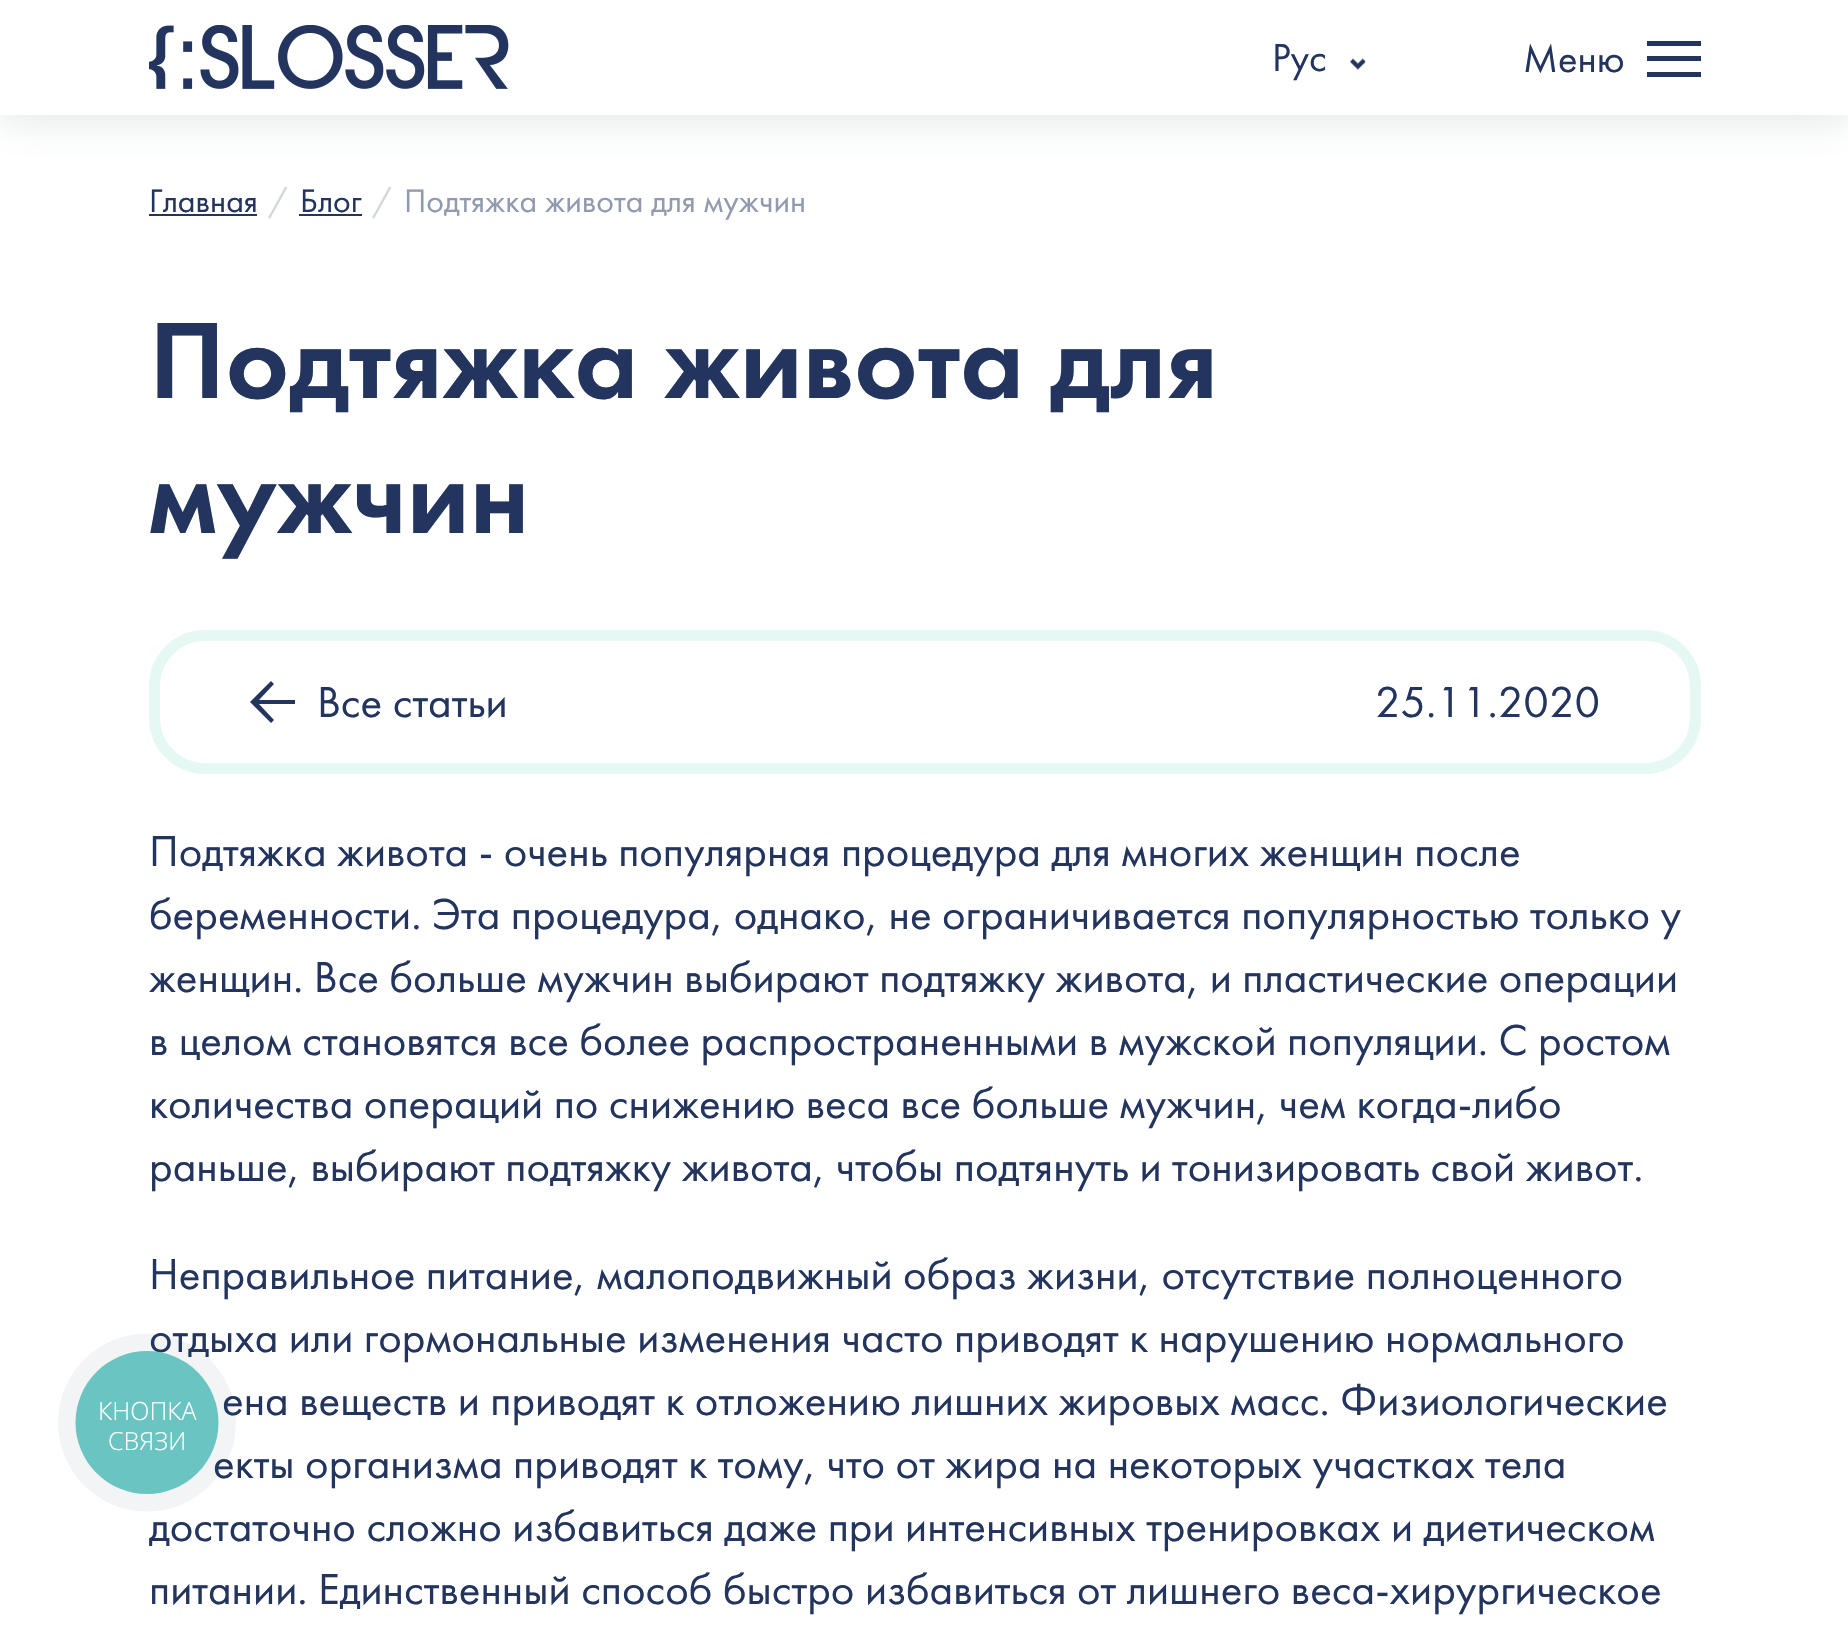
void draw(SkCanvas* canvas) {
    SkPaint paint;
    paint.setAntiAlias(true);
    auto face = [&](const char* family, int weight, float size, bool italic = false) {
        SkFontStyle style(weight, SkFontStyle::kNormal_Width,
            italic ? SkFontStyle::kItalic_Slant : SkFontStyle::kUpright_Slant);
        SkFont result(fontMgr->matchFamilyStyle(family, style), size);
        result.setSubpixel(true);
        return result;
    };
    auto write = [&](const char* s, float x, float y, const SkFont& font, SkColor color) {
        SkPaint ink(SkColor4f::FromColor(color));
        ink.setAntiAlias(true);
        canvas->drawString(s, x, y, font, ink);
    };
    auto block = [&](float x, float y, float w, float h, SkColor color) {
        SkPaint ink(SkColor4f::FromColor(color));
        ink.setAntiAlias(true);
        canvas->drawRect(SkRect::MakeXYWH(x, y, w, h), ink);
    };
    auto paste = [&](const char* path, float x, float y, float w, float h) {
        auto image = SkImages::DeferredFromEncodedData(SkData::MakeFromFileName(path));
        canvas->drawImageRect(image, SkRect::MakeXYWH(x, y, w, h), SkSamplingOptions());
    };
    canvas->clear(SK_ColorWHITE);
    paint.setColor(SkColorSetARGB(51, 54, 104, 92));
    paint.setMaskFilter(SkMaskFilter::MakeBlur(kNormal_SkBlurStyle, 22.5f));
    canvas->drawRect(SkRect::MakeXYWH(0, 0, 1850, 115), paint);
    paint.setMaskFilter(nullptr);
    block(0, 0, 1848, 115, SK_ColorWHITE);
    paste("pic1.png", 149, 25, 360, 64);
    auto kFont1 = face("Futura PT", 400, 40.5f);
    write("Рус", 1272, 71, kFont1, SkColorSetRGB(35, 53, 95));
    paste("pic2.png", 1350, 58, 16, 12);
    write("Меню", 1523, 72, kFont1, SkColorSetRGB(35, 53, 95));
    block(1647, 41, 54, 5, SkColorSetRGB(35, 53, 95));
    block(1647, 56, 54, 5, SkColorSetRGB(35, 53, 95));
    block(1647, 72, 54, 5, SkColorSetRGB(35, 53, 95));
    auto kFont2 = face("Futura PT", 400, 33.75f);
    write("Главная", 149, 212, kFont2, SkColorSetRGB(35, 53, 95));
    block(149, 214, 108, 2, SkColorSetRGB(35, 53, 95));
    write("/", 268, 212, kFont2, SkColorSetRGB(211, 215, 223));
    write("Блог", 300, 212, kFont2, SkColorSetRGB(35, 53, 95));
    block(299, 214, 63, 2, SkColorSetRGB(35, 53, 95));
    write("/", 372, 212, kFont2, SkColorSetRGB(211, 215, 223));
    write("Подтяжка живота для мужчин", 404, 212, kFont2, SkColorSetRGB(145, 154, 175));
    auto kFont3 = face("Futura PT", 500, 112.5f);
    write("Подтяжка живота для", 149, 398, kFont3, SkColorSetRGB(35, 53, 95));
    write("мужчин", 149, 533, kFont3, SkColorSetRGB(35, 53, 95));
    paint.setStyle(SkPaint::kStroke_Style);
    paint.setStrokeWidth(11);
    paint.setColor(SkColorSetRGB(229, 248, 244));
    canvas->drawRoundRect(SkRect::MakeXYWH(154.5f, 635.5f, 1541, 133), 50.5f, 50.5f, paint);
    paint.setStyle(SkPaint::kFill_Style);
    paint.setColor(SkColorSetRGB(35, 53, 95));
    canvas->drawPath(SkPathBuilder(SkPathFillType::kEvenOdd).moveTo(259, 704).lineTo(274, 720).lineTo(271, 723).lineTo(250, 702).lineTo(271, 681).lineTo(274, 684).lineTo(259, 700).lineTo(295, 700).lineTo(295, 704).close().detach(), paint);
    auto kFont4 = face("Futura PT", 400, 45);
    write("Все статьи", 317, 717, kFont4, SkColorSetRGB(35, 53, 95));
    write("25.11.2020", 1375, 717, kFont4, SkColorSetRGB(35, 53, 95));
    write("Подтяжка живота - очень популярная процедура для многих женщин после", 149, 866, kFont4, SkColorSetRGB(35, 53, 95));
    write("беременности. Эта процедура, однако, не ограничивается популярностью только у", 149, 929, kFont4, SkColorSetRGB(35, 53, 95));
    write("женщин. Все больше мужчин выбирают подтяжку живота, и пластические операции", 149, 992, kFont4, SkColorSetRGB(35, 53, 95));
    write("в целом становятся все более распространенными в мужской популяции. С ростом", 149, 1055, kFont4, SkColorSetRGB(35, 53, 95));
    write("количества операций по снижению веса все больше мужчин, чем когда-либо", 149, 1118, kFont4, SkColorSetRGB(35, 53, 95));
    write("раньше, выбирают подтяжку живота, чтобы подтянуть и тонизировать свой живот.", 149, 1181, kFont4, SkColorSetRGB(35, 53, 95));
    write("Неправильное питание, малоподвижный образ жизни, отсутствие полноценного", 149, 1289, kFont4, SkColorSetRGB(35, 53, 95));
    write("отдыха или гормональные изменения часто приводят к нарушению нормального", 149, 1352, kFont4, SkColorSetRGB(35, 53, 95));
    write("ена веществ и приводят к отложению лишних жировых масс. Физиологические", 222, 1415, kFont4, SkColorSetRGB(35, 53, 95));
    write("екты организма приводят к тому, что от жира на некоторых участках тела", 213, 1478, kFont4, SkColorSetRGB(35, 53, 95));
    write("достаточно сложно избавиться даже при интенсивных тренировках и диетическом", 149, 1541, kFont4, SkColorSetRGB(35, 53, 95));
    write("питании. Единственный способ быстро избавиться от лишнего веса-хирургическое", 149, 1604, kFont4, SkColorSetRGB(35, 53, 95));
    paint.setColor(SkColorSetARGB(15, 42, 64, 93));
    canvas->drawCircle(147, 1422.5f, 89, paint);
    paint.setColor(SkColorSetRGB(106, 196, 193));
    canvas->drawCircle(147, 1422.5f, 71.5f, paint);
    auto kFont5 = face("Open Sans", 300, 25);
    write("КНОПКА", 98, 1420, kFont5, SK_ColorWHITE);
    write("СВЯЗИ", 108, 1450, kFont5, SK_ColorWHITE);
}
